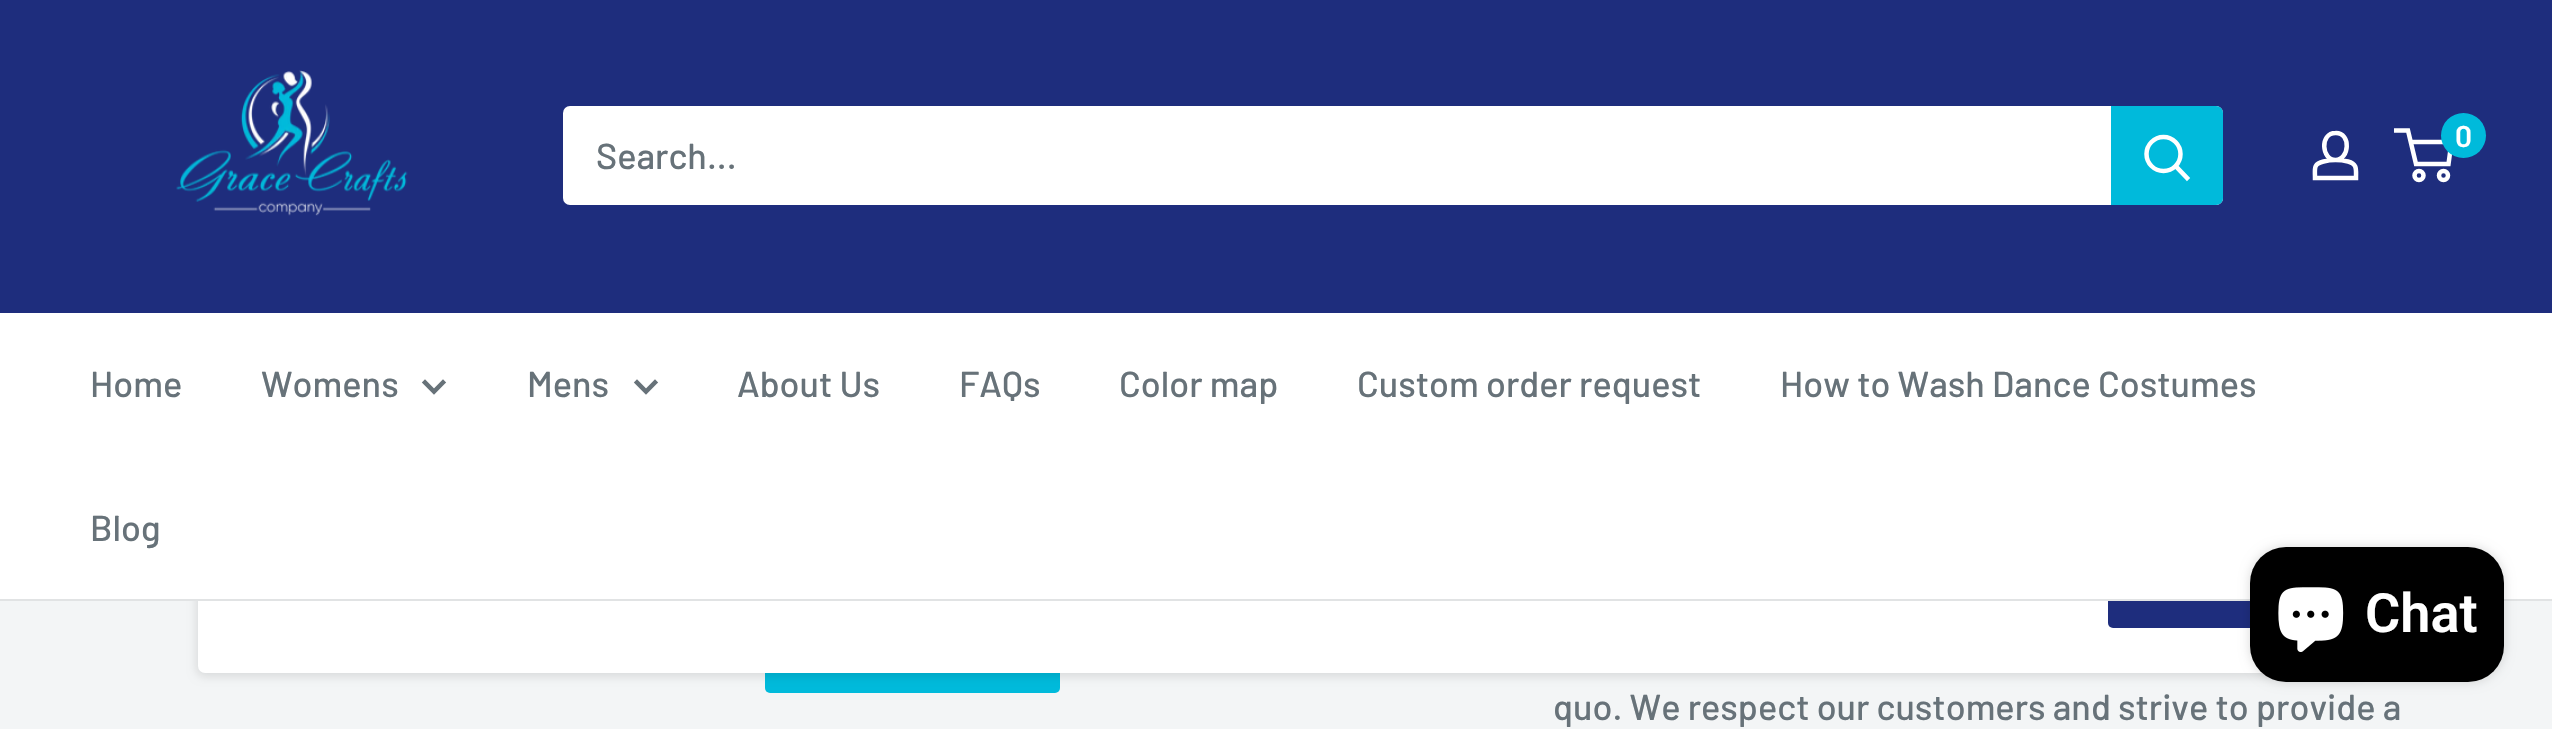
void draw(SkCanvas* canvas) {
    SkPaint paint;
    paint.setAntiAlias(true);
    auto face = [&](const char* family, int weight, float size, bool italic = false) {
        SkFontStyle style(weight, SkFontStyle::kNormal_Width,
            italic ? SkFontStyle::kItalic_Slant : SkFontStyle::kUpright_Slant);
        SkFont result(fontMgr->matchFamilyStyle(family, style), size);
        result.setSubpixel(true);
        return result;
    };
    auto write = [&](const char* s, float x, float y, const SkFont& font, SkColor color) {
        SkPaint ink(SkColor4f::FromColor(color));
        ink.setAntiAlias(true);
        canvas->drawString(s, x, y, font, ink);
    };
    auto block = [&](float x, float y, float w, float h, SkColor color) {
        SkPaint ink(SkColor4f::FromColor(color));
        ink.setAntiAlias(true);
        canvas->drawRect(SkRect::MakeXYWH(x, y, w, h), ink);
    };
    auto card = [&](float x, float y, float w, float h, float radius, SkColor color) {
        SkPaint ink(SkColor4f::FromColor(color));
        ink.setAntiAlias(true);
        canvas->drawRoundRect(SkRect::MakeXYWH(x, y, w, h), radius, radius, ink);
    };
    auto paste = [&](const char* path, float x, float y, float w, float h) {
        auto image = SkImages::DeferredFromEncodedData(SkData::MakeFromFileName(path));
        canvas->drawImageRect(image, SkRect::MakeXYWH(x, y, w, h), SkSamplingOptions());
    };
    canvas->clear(SkColorSetRGB(243, 245, 246));
    block(0, 0, 2552, 313, SkColorSetRGB(30, 45, 125));
    paste("pic1.png", 176, 70, 232, 146);
    paint.setStyle(SkPaint::kStroke_Style);
    paint.setStrokeWidth(4.5f);
    paint.setColor(SK_ColorWHITE);
    canvas->drawPath(SkPathBuilder().moveTo(2335.5f, 160).cubicTo(2339.5f, 160, 2344, 160.5f, 2348, 161.5f).cubicTo(2357.5f, 164, 2356, 169.5f, 2356, 178).lineTo(2315, 178).cubicTo(2315, 168.5f, 2313, 164, 2323.5f, 161.5f).cubicTo(2327.5f, 160.5f, 2331.5f, 160, 2335.5f, 160).close().moveTo(2335.5f, 160).cubicTo(2321.5f, 160, 2319.5f, 133, 2335.5f, 133).cubicTo(2351.5f, 132.5f, 2349.5f, 160, 2335.5f, 160).close().detach(), paint);
    canvas->drawCircle(2419, 175.5f, 4.5f, paint);
    canvas->drawCircle(2443.5f, 175.5f, 4.5f, paint);
    canvas->drawPath(SkPathBuilder().moveTo(2410.5f, 142).lineTo(2451.5f, 142).lineTo(2448.5f, 164).lineTo(2416, 164).lineTo(2408, 130.5f).lineTo(2394, 130.5f).detach(), paint);
    paint.setStyle(SkPaint::kFill_Style);
    paint.setColor(SkColorSetRGB(0, 186, 219));
    canvas->drawCircle(2463.5f, 135.5f, 22.5f, paint);
    auto kFont1 = face("Barlow", 600, 30);
    write("0", 2455, 147, kFont1, SK_ColorWHITE);
    card(563, 106, 1660, 99, 7, SK_ColorWHITE);
    auto kFont2 = face("Barlow", 500, 36);
    write("Search...", 596, 169, kFont2, SkColorSetRGB(103, 114, 121));
    canvas->drawPath(SkPathBuilder().moveTo(2111, 106).lineTo(2216, 106).cubicTo(2220, 106, 2223, 109, 2223, 113).lineTo(2223, 198).cubicTo(2223, 202, 2220, 205, 2216, 205).lineTo(2111, 205).close().detach(), paint);
    paint.setStyle(SkPaint::kStroke_Style);
    paint.setStrokeCap(SkPaint::kSquare_Cap);
    paint.setColor(SK_ColorWHITE);
    canvas->drawPath(SkPathBuilder().moveTo(2187, 178).lineTo(2176, 166.5f).detach(), paint);
    paint.setStrokeCap(SkPaint::kButt_Cap);
    canvas->drawCircle(2163.5f, 154, 17, paint);
    card(765, 585, 295, 108, 5, SkColorSetRGB(0, 186, 219));
    paint.setStyle(SkPaint::kFill_Style);
    paint.setColor(SkColorSetARGB(26, 0, 0, 0));
    paint.setMaskFilter(SkMaskFilter::MakeBlur(kNormal_SkBlurStyle, 4.5f));
    canvas->drawRoundRect(SkRect::MakeXYWH(196, 502, 2164, 175), 9, 9, paint);
    paint.setMaskFilter(nullptr);
    card(198, 502, 2160, 171, 7, SK_ColorWHITE);
    card(2108, 547, 183, 81, 5, SkColorSetRGB(30, 45, 125));
    block(0, 313, 2552, 286, SK_ColorWHITE);
    block(0, 599, 2552, 2, SkColorSetRGB(225, 227, 228));
    write("Home", 90, 397, kFont2, SkColorSetRGB(103, 114, 121));
    write("Womens", 261, 397, kFont2, SkColorSetRGB(103, 114, 121));
    paint.setStyle(SkPaint::kStroke_Style);
    paint.setStrokeCap(SkPaint::kSquare_Cap);
    paint.setColor(SkColorSetRGB(103, 114, 121));
    canvas->drawPath(SkPathBuilder().moveTo(443, 382.5f).lineTo(434, 391.5f).lineTo(425, 382.5f).detach(), paint);
    write("Mens", 527, 397, kFont2, SkColorSetRGB(103, 114, 121));
    canvas->drawPath(SkPathBuilder().moveTo(655, 382.5f).lineTo(646, 391.5f).lineTo(637, 382.5f).detach(), paint);
    write("About Us", 737, 397, kFont2, SkColorSetRGB(103, 114, 121));
    write("FAQs", 959, 397, kFont2, SkColorSetRGB(103, 114, 121));
    write("Color map", 1119, 397, kFont2, SkColorSetRGB(103, 114, 121));
    write("Custom order request", 1357, 397, kFont2, SkColorSetRGB(103, 114, 121));
    write("How to Wash Dance Costumes", 1780, 397, kFont2, SkColorSetRGB(103, 114, 121));
    write("Blog", 90, 541, kFont2, SkColorSetRGB(103, 114, 121));
    paint.setStyle(SkPaint::kFill_Style);
    paint.setColor(SkColorSetARGB(38, 0, 0, 0));
    paint.setMaskFilter(SkMaskFilter::MakeBlur(kNormal_SkBlurStyle, 5.5f));
    canvas->drawRoundRect(SkRect::MakeXYWH(2250, 547, 254, 135), 36, 36, paint);
    paint.setMaskFilter(nullptr);
    card(2250, 547, 254, 135, 36, SK_ColorBLACK);
    paste("pic2.png", 2278, 587, 66, 65);
    auto kFont3 = face("Roboto", 600, 54);
    write("Chat", 2365, 632, kFont3, SK_ColorWHITE);
    write("quo. We respect our customers and strive to provide a", 1553, 720, kFont2, SkColorSetRGB(103, 114, 121));
}
